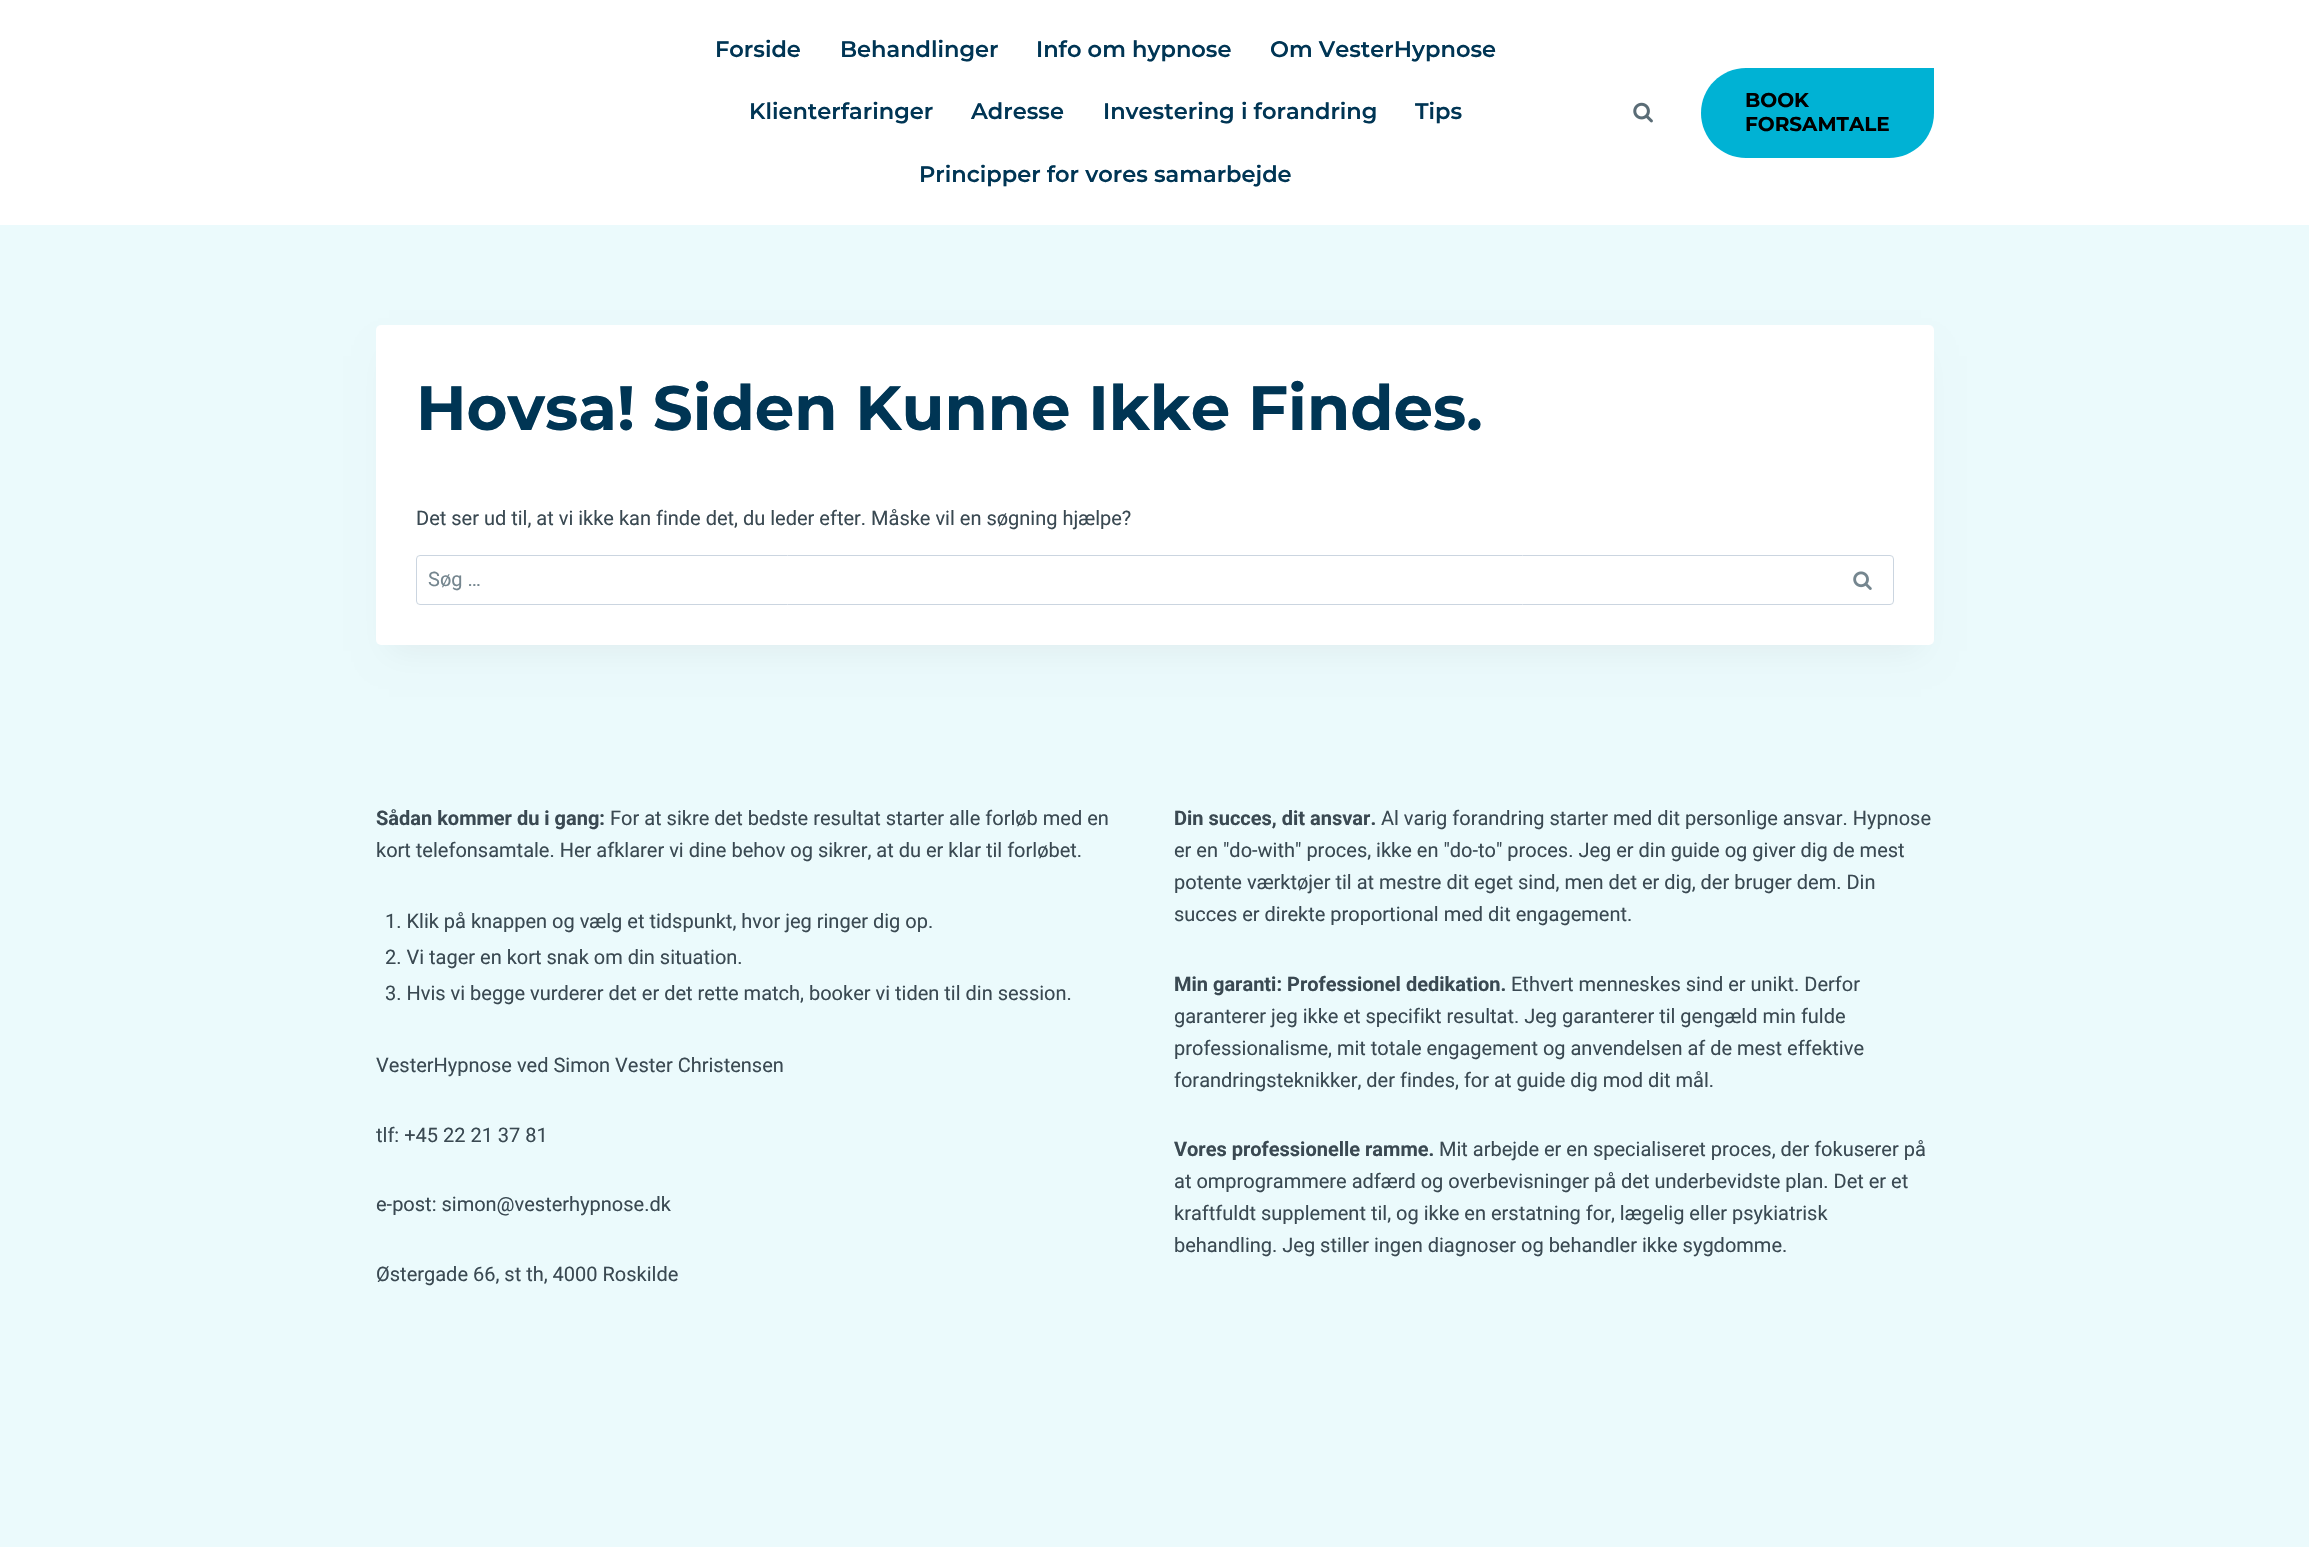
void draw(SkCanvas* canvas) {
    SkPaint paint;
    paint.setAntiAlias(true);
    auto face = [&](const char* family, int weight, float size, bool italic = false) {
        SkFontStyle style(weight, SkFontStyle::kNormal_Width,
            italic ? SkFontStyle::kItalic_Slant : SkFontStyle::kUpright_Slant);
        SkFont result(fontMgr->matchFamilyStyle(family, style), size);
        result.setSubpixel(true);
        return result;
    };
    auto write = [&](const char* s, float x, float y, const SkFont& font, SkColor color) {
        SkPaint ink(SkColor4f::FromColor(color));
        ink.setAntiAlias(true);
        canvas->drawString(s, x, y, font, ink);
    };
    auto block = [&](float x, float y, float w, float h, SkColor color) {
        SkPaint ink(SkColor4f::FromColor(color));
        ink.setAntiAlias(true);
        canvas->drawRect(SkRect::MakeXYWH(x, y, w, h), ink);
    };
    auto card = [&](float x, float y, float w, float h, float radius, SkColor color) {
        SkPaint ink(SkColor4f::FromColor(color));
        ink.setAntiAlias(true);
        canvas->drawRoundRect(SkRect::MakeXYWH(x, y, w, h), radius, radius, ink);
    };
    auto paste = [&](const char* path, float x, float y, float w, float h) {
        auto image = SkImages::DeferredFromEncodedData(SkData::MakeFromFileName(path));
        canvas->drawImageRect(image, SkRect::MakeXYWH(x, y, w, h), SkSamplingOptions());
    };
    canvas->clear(SkColorSetRGB(235, 250, 252));
    block(0, 0, 2309, 225, SK_ColorWHITE);
    auto kFont1 = face("Montserrat", 600, 22.5f);
    write("Forside", 715, 57, kFont1, SkColorSetRGB(0, 53, 84));
    write("Behandlinger", 840, 57, kFont1, SkColorSetRGB(0, 53, 84));
    write("Info om hypnose", 1036, 57, kFont1, SkColorSetRGB(0, 53, 84));
    write("Om VesterHypnose", 1270, 57, kFont1, SkColorSetRGB(0, 53, 84));
    write("Klienterfaringer", 749, 119, kFont1, SkColorSetRGB(0, 53, 84));
    write("Adresse", 971, 119, kFont1, SkColorSetRGB(0, 53, 84));
    write("Investering i forandring", 1103, 119, kFont1, SkColorSetRGB(0, 53, 84));
    write("Tips", 1415, 119, kFont1, SkColorSetRGB(0, 53, 84));
    write("Principper for vores samarbejde", 919, 182, kFont1, SkColorSetRGB(0, 53, 84));
    paste("pic1.png", 1633, 102, 20, 21);
    paint.setColor(SkColorSetRGB(0, 178, 212));
    canvas->drawPath(SkPathBuilder().moveTo(1746, 68).lineTo(1934, 68).lineTo(1934, 113).cubicTo(1934, 138, 1914, 158, 1889, 158).lineTo(1746, 158).cubicTo(1721, 158, 1701, 138, 1701, 113).cubicTo(1701, 88, 1721, 68, 1746, 68).close().detach(), paint);
    auto kFont2 = face("Montserrat", 700, 20);
    write("BOOK", 1745, 107, kFont2, SK_ColorBLACK);
    write("FORSAMTALE", 1745, 131, kFont2, SK_ColorBLACK);
    paint.setColor(SkColorSetARGB(13, 0, 0, 0));
    paint.setMaskFilter(SkMaskFilter::MakeBlur(kNormal_SkBlurStyle, 15.5f));
    canvas->drawRect(SkRect::MakeXYWH(389, 356, 1532, 295), paint);
    paint.setMaskFilter(nullptr);
    card(376, 325, 1558, 320, 5, SK_ColorWHITE);
    auto kFont3 = face("Montserrat", 700, 62.6f);
    write("Hovsa! Siden Kunne Ikke Findes.", 416, 430, kFont3, SkColorSetRGB(0, 53, 84));
    auto kFont4 = face("Roboto", 400, 20);
    write("Det ser ud til, at vi ikke kan finde det, du leder efter. Måske vil en søgning hjælpe?", 416, 525, kFont4, SkColorSetRGB(58, 73, 82));
    paint.setStyle(SkPaint::kStroke_Style);
    paint.setStrokeWidth(1);
    paint.setColor(SkColorSetRGB(203, 213, 224));
    canvas->drawRoundRect(SkRect::MakeXYWH(416.5f, 555.5f, 1477, 49), 3.5f, 3.5f, paint);
    write("Søg …", 428, 586, kFont4, SkColorSetRGB(117, 134, 143));
    paste("pic2.png", 1853, 571, 19, 19);
    auto kFont5 = face("Roboto", 700, 20);
    write("Sådan kommer du i gang:", 376, 825, kFont5, SkColorSetRGB(58, 73, 82));
    write("For at sikre det bedste resultat starter alle forløb med en", 610, 825, kFont4, SkColorSetRGB(58, 73, 82));
    write("kort telefonsamtale. Her afklarer vi dine behov og sikrer, at du er klar til forløbet.", 376, 857, kFont4, SkColorSetRGB(58, 73, 82));
    write("1. Klik på knappen og vælg et tidspunkt, hvor jeg ringer dig op.", 385, 928, kFont4, SkColorSetRGB(58, 73, 82));
    write("2. Vi tager en kort snak om din situation.", 385, 964, kFont4, SkColorSetRGB(58, 73, 82));
    write("3. Hvis vi begge vurderer det er det rette match, booker vi tiden til din session.", 385, 1000, kFont4, SkColorSetRGB(58, 73, 82));
    write("VesterHypnose ved Simon Vester Christensen", 376, 1072, kFont4, SkColorSetRGB(58, 73, 82));
    write("tlf: +45 22 21 37 81", 376, 1142, kFont4, SkColorSetRGB(58, 73, 82));
    write("e-post: simon@vesterhypnose.dk", 376, 1211, kFont4, SkColorSetRGB(58, 73, 82));
    write("Østergade 66, st th, 4000 Roskilde", 376, 1281, kFont4, SkColorSetRGB(58, 73, 82));
    write("Din succes, dit ansvar.", 1174, 825, kFont5, SkColorSetRGB(58, 73, 82));
    write("Al varig forandring starter med dit personlige ansvar. Hypnose", 1381, 825, kFont4, SkColorSetRGB(58, 73, 82));
    write("er en \"do-with\" proces, ikke en \"do-to\" proces. Jeg er din guide og giver dig de mest", 1174, 857, kFont4, SkColorSetRGB(58, 73, 82));
    write("potente værktøjer til at mestre dit eget sind, men det er dig, der bruger dem. Din", 1174, 889, kFont4, SkColorSetRGB(58, 73, 82));
    write("succes er direkte proportional med dit engagement.", 1174, 921, kFont4, SkColorSetRGB(58, 73, 82));
    write("Min garanti: Professionel dedikation.", 1174, 991, kFont5, SkColorSetRGB(58, 73, 82));
    write("Ethvert menneskes sind er unikt. Derfor", 1511, 991, kFont4, SkColorSetRGB(58, 73, 82));
    write("garanterer jeg ikke et specifikt resultat. Jeg garanterer til gengæld min fulde", 1174, 1023, kFont4, SkColorSetRGB(58, 73, 82));
    write("professionalisme, mit totale engagement og anvendelsen af de mest effektive", 1174, 1055, kFont4, SkColorSetRGB(58, 73, 82));
    write("forandringsteknikker, der findes, for at guide dig mod dit mål.", 1174, 1087, kFont4, SkColorSetRGB(58, 73, 82));
    write("Vores professionelle ramme.", 1174, 1156, kFont5, SkColorSetRGB(58, 73, 82));
    write("Mit arbejde er en specialiseret proces, der fokuserer på", 1439, 1156, kFont4, SkColorSetRGB(58, 73, 82));
    write("at omprogrammere adfærd og overbevisninger på det underbevidste plan. Det er et", 1174, 1188, kFont4, SkColorSetRGB(58, 73, 82));
    write("kraftfuldt supplement til, og ikke en erstatning for, lægelig eller psykiatrisk", 1174, 1220, kFont4, SkColorSetRGB(58, 73, 82));
    write("behandling. Jeg stiller ingen diagnoser og behandler ikke sygdomme.", 1174, 1252, kFont4, SkColorSetRGB(58, 73, 82));
}
